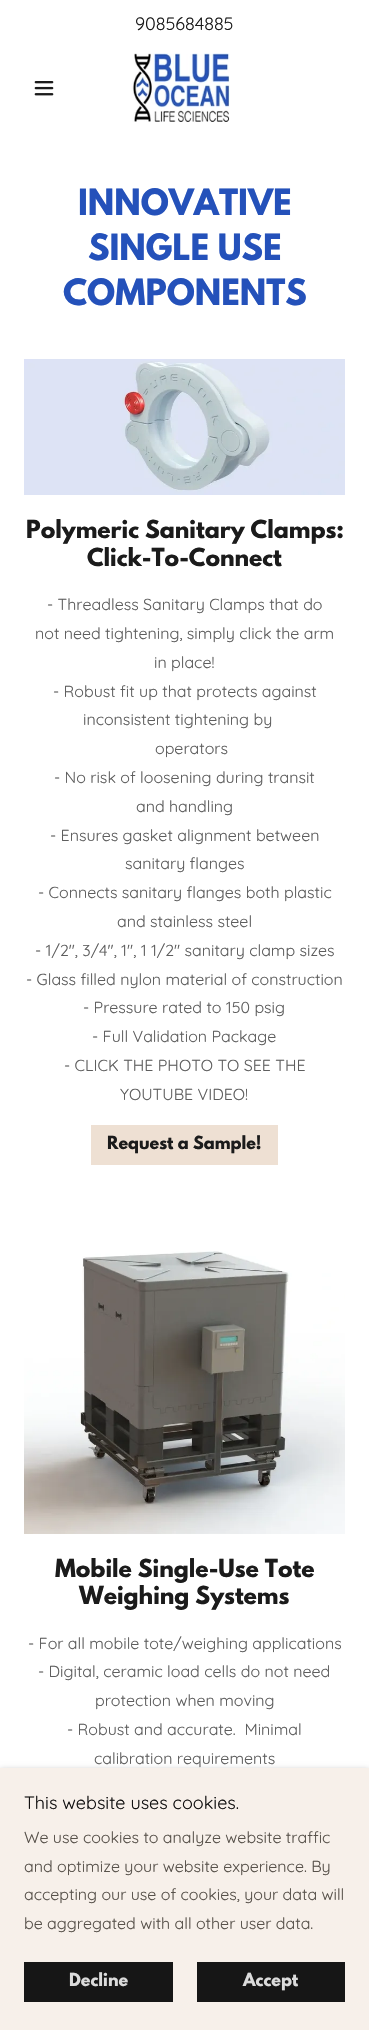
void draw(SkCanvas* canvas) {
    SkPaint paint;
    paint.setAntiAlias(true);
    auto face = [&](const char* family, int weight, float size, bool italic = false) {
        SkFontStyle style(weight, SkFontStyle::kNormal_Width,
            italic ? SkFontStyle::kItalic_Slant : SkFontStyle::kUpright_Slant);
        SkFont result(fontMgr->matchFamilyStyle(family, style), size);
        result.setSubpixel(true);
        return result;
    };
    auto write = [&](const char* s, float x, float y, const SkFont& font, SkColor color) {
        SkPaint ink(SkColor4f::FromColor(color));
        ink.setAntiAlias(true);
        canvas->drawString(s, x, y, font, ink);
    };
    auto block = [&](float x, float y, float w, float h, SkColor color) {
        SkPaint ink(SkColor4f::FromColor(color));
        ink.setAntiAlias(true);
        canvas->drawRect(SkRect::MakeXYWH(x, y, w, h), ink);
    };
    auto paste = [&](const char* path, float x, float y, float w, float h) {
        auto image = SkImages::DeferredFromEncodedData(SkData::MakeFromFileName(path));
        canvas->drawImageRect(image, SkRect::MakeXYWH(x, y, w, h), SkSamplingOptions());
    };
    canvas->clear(SK_ColorWHITE);
    auto kFont1 = face("Quicksand", 400, 18);
    write("9085684885", 135, 30, kFont1, SkColorSetRGB(27, 27, 27));
    paste("pic1.png", 34, 81, 20, 15);
    paste("pic2.png", 131, 53, 99, 69);
    auto kFont2 = face("League Spartan", 700, 32);
    write("INNOVATIVE", 78, 215, kFont2, SkColorSetRGB(36, 81, 186));
    write("SINGLE USE", 88, 260, kFont2, SkColorSetRGB(36, 81, 186));
    write("COMPONENTS", 63, 305, kFont2, SkColorSetRGB(36, 81, 186));
    paste("pic3.png", 24, 359, 321, 136);
    auto kFont3 = face("League Spartan", 700, 22);
    write("Polymeric Sanitary Clamps:", 26, 538, kFont3, SkColorSetRGB(27, 27, 27));
    write("Click-To-Connect", 87, 566, kFont3, SkColorSetRGB(27, 27, 27));
    auto kFont4 = face("Quicksand", 400, 16);
    write("- Threadless Sanitary Clamps that do", 47, 610, kFont4, SkColorSetRGB(94, 94, 94));
    write("not need tightening, simply click the arm", 35, 639, kFont4, SkColorSetRGB(94, 94, 94));
    write("in place!", 154, 668, kFont4, SkColorSetRGB(94, 94, 94));
    write("- Robust fit up that protects against", 53, 697, kFont4, SkColorSetRGB(94, 94, 94));
    write("inconsistent tightening by", 83, 725, kFont4, SkColorSetRGB(94, 94, 94));
    write("operators", 155, 754, kFont4, SkColorSetRGB(94, 94, 94));
    write("- No risk of loosening during transit", 54, 783, kFont4, SkColorSetRGB(94, 94, 94));
    write("and handling", 136, 812, kFont4, SkColorSetRGB(94, 94, 94));
    write("- Ensures gasket alignment between", 50, 841, kFont4, SkColorSetRGB(94, 94, 94));
    write("sanitary flanges", 125, 869, kFont4, SkColorSetRGB(94, 94, 94));
    write("- Connects sanitary flanges both plastic", 38, 898, kFont4, SkColorSetRGB(94, 94, 94));
    write("and stainless steel", 117, 927, kFont4, SkColorSetRGB(94, 94, 94));
    write("- 1/2\", 3/4\", 1\", 1 1/2\" sanitary clamp sizes", 35, 956, kFont4, SkColorSetRGB(94, 94, 94));
    write("- Glass filled nylon material of construction", 26, 985, kFont4, SkColorSetRGB(94, 94, 94));
    write("- Pressure rated to 150 psig", 83, 1013, kFont4, SkColorSetRGB(94, 94, 94));
    write("- Full Validation Package", 92, 1042, kFont4, SkColorSetRGB(94, 94, 94));
    write("- CLICK THE PHOTO TO SEE THE", 64, 1071, kFont4, SkColorSetRGB(94, 94, 94));
    write("YOUTUBE VIDEO!", 120, 1100, kFont4, SkColorSetRGB(94, 94, 94));
    block(91, 1125, 187, 40, SkColorSetRGB(238, 224, 211));
    auto kFont5 = face("League Spartan", 700, 16);
    write("Request a Sample!", 107, 1149, kFont5, SkColorSetRGB(27, 27, 27));
    paste("pic4.png", 24, 1251, 321, 283);
    write("Mobile Single-Use Tote", 55, 1577, kFont3, SkColorSetRGB(27, 27, 27));
    write("Weighing Systems", 79, 1604, kFont3, SkColorSetRGB(27, 27, 27));
    write("- For all mobile tote/weighing applications", 28, 1649, kFont4, SkColorSetRGB(94, 94, 94));
    write("- Digital, ceramic load cells do not need", 38, 1677, kFont4, SkColorSetRGB(94, 94, 94));
    write("protection when moving", 95, 1706, kFont4, SkColorSetRGB(94, 94, 94));
    write("- Robust and accurate.  Minimal", 67, 1735, kFont4, SkColorSetRGB(94, 94, 94));
    write("calibration requirements", 94, 1764, kFont4, SkColorSetRGB(94, 94, 94));
    paint.setColor(SkColorSetARGB(77, 0, 0, 0));
    paint.setMaskFilter(SkMaskFilter::MakeBlur(kNormal_SkBlurStyle, 3));
    canvas->drawRect(SkRect::MakeXYWH(0, 1770, 369, 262), paint);
    paint.setMaskFilter(nullptr);
    block(0, 1768, 369, 262, SkColorSetRGB(247, 240, 234));
    write("This website uses cookies.", 24, 1809, kFont1, SkColorSetRGB(18, 17, 17));
    write("We use cookies to analyze website traffic", 24, 1843, kFont4, SkColorSetRGB(88, 82, 75));
    write("and optimize your website experience. By", 24, 1872, kFont4, SkColorSetRGB(88, 82, 75));
    write("accepting our use of cookies, your data will", 24, 1900, kFont4, SkColorSetRGB(88, 82, 75));
    write("be aggregated with all other user data.", 24, 1929, kFont4, SkColorSetRGB(88, 82, 75));
    block(24, 1962, 149, 40, SkColorSetRGB(22, 22, 22));
    write("Decline", 69, 1986, kFont5, SkColorSetRGB(219, 219, 219));
    block(197, 1962, 148, 40, SkColorSetRGB(22, 22, 22));
    write("Accept", 243, 1986, kFont5, SkColorSetRGB(219, 219, 219));
}
